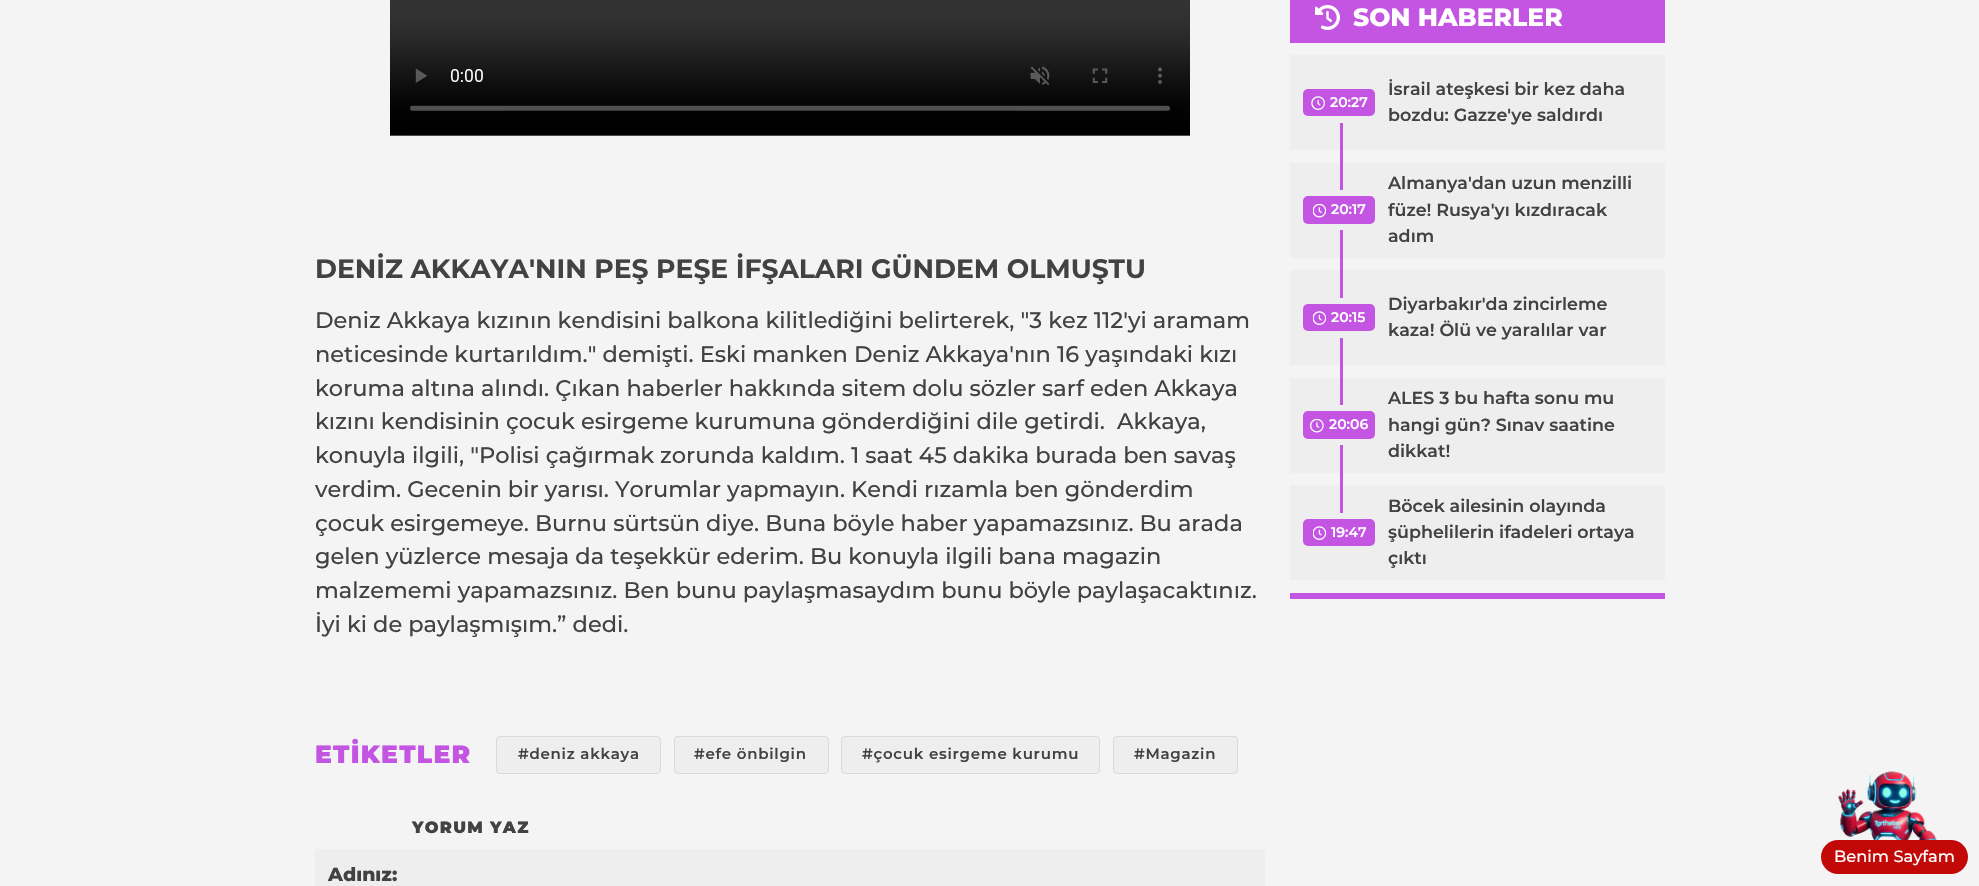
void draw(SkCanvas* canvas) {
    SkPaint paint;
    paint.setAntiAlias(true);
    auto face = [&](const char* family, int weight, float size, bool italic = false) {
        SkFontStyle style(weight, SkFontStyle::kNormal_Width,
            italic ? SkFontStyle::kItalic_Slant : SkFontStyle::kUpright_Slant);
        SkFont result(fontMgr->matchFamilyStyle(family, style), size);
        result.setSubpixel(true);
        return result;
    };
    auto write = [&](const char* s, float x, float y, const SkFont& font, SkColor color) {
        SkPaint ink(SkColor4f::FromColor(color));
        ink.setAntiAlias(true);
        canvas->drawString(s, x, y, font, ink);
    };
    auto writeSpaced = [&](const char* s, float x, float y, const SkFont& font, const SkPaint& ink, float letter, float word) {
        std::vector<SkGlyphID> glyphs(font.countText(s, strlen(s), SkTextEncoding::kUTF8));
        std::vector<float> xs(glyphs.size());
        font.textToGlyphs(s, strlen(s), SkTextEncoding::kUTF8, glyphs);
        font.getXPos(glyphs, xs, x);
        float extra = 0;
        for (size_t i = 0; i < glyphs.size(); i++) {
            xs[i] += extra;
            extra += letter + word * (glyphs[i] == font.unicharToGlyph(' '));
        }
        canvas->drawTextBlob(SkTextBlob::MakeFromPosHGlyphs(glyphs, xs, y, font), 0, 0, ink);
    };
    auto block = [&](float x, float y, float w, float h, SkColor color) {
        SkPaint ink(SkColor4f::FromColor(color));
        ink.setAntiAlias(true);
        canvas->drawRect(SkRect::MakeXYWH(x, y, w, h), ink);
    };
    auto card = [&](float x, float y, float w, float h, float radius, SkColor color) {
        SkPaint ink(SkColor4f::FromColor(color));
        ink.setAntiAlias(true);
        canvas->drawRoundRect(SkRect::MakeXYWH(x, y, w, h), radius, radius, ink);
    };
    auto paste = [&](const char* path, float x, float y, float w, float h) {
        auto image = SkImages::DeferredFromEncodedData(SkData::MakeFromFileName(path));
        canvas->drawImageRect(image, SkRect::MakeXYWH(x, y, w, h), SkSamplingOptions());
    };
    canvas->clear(SkColorSetRGB(244, 244, 244));
    paste("pic1.png", 390, 0, 800, 136);
    auto kFont1 = face("Montserrat", 700, 26.6f);
    write("DENİZ AKKAYA'NIN PEŞ PEŞE İFŞALARI GÜNDEM OLMUŞTU", 315, 278, kFont1, SkColorSetRGB(66, 66, 66));
    auto kFont2 = face("Montserrat", 500, 22.5f);
    write("Deniz Akkaya kızının kendisini balkona kilitlediğini belirterek, \"3 kez 112'yi aramam", 315, 328, kFont2, SkColorSetRGB(66, 66, 66));
    write("neticesinde kurtarıldım.\" demişti. Eski manken Deniz Akkaya'nın 16 yaşındaki kızı", 315, 362, kFont2, SkColorSetRGB(66, 66, 66));
    write("koruma altına alındı. Çıkan haberler hakkında sitem dolu sözler sarf eden Akkaya", 315, 396, kFont2, SkColorSetRGB(66, 66, 66));
    write("kızını kendisinin çocuk esirgeme kurumuna gönderdiğini dile getirdi.  Akkaya,", 315, 429, kFont2, SkColorSetRGB(66, 66, 66));
    write("konuyla ilgili, \"Polisi çağırmak zorunda kaldım. 1 saat 45 dakika burada ben savaş", 315, 463, kFont2, SkColorSetRGB(66, 66, 66));
    write("verdim. Gecenin bir yarısı. Yorumlar yapmayın. Kendi rızamla ben gönderdim", 315, 497, kFont2, SkColorSetRGB(66, 66, 66));
    write("çocuk esirgemeye. Burnu sürtsün diye. Buna böyle haber yapamazsınız. Bu arada", 315, 531, kFont2, SkColorSetRGB(66, 66, 66));
    write("gelen yüzlerce mesaja da teşekkür ederim. Bu konuyla ilgili bana magazin", 315, 564, kFont2, SkColorSetRGB(66, 66, 66));
    write("malzememi yapamazsınız. Ben bunu paylaşmasaydım bunu böyle paylaşacaktınız.", 315, 598, kFont2, SkColorSetRGB(66, 66, 66));
    write("İyi ki de paylaşmışım.” dedi.", 315, 632, kFont2, SkColorSetRGB(66, 66, 66));
    auto kFont3 = face("Montserrat", 900, 25);
    paint.setColor(SkColorSetRGB(195, 85, 226));
    writeSpaced("ETİKETLER", 315, 763, kFont3, paint, 1.25f, 0);
    paint.setColor(SkColorSetRGB(238, 238, 238));
    canvas->drawRoundRect(SkRect::MakeXYWH(496.5f, 736.5f, 164, 37), 3.5f, 3.5f, paint);
    paint.setStyle(SkPaint::kStroke_Style);
    paint.setStrokeWidth(1);
    paint.setColor(SkColorSetRGB(217, 217, 217));
    canvas->drawRoundRect(SkRect::MakeXYWH(496.5f, 736.5f, 164, 37), 3.5f, 3.5f, paint);
    auto kFont4 = face("Montserrat", 600, 15);
    paint.setStyle(SkPaint::kFill_Style);
    paint.setColor(SkColorSetRGB(66, 66, 66));
    writeSpaced("#deniz akkaya", 518, 759, kFont4, paint, 0.75f, 0);
    paint.setColor(SkColorSetRGB(238, 238, 238));
    canvas->drawRoundRect(SkRect::MakeXYWH(674.5f, 736.5f, 154, 37), 3.5f, 3.5f, paint);
    paint.setStyle(SkPaint::kStroke_Style);
    paint.setColor(SkColorSetRGB(217, 217, 217));
    canvas->drawRoundRect(SkRect::MakeXYWH(674.5f, 736.5f, 154, 37), 3.5f, 3.5f, paint);
    paint.setStyle(SkPaint::kFill_Style);
    paint.setColor(SkColorSetRGB(66, 66, 66));
    writeSpaced("#efe önbilgin", 694, 759, kFont4, paint, 0.75f, 0);
    paint.setColor(SkColorSetRGB(238, 238, 238));
    canvas->drawRoundRect(SkRect::MakeXYWH(841.5f, 736.5f, 258, 37), 3.5f, 3.5f, paint);
    paint.setStyle(SkPaint::kStroke_Style);
    paint.setColor(SkColorSetRGB(217, 217, 217));
    canvas->drawRoundRect(SkRect::MakeXYWH(841.5f, 736.5f, 258, 37), 3.5f, 3.5f, paint);
    paint.setStyle(SkPaint::kFill_Style);
    paint.setColor(SkColorSetRGB(66, 66, 66));
    writeSpaced("#çocuk esirgeme kurumu", 862, 759, kFont4, paint, 0.75f, 0);
    paint.setColor(SkColorSetRGB(238, 238, 238));
    canvas->drawRoundRect(SkRect::MakeXYWH(1113.5f, 736.5f, 124, 37), 3.5f, 3.5f, paint);
    paint.setStyle(SkPaint::kStroke_Style);
    paint.setColor(SkColorSetRGB(217, 217, 217));
    canvas->drawRoundRect(SkRect::MakeXYWH(1113.5f, 736.5f, 124, 37), 3.5f, 3.5f, paint);
    paint.setStyle(SkPaint::kFill_Style);
    paint.setColor(SkColorSetRGB(66, 66, 66));
    writeSpaced("#Magazin", 1134, 759, kFont4, paint, 0.75f, 0);
    auto kFont5 = face("Montserrat", 900, 16.25f);
    writeSpaced("YORUM YAZ", 412, 833, kFont5, paint, 1.25f, 0);
    card(315, 849, 950, 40, 2.5f, SkColorSetRGB(238, 238, 238));
    auto kFont6 = face("Montserrat", 800, 19);
    write("Adınız:", 328, 881, kFont6, SkColorSetRGB(66, 66, 66));
    block(1290, 0, 375, 43, SkColorSetRGB(195, 85, 226));
    paste("pic2.png", 1315, 5, 25, 25);
    auto kFont7 = face("Montserrat", 800, 25);
    write("SON HABERLER", 1353, 26, kFont7, SK_ColorWHITE);
    card(1290, 55, 375, 95, 1, SkColorSetRGB(238, 238, 238));
    card(1303, 89, 72, 27, 5, SkColorSetRGB(195, 85, 226));
    paste("pic3.png", 1311, 96, 14, 14);
    auto kFont8 = face("Montserrat", 600, 14);
    write("20:27", 1330, 107, kFont8, SK_ColorWHITE);
    auto kFont9 = face("Montserrat", 600, 17.5f);
    write("İsrail ateşkesi bir kez daha", 1388, 95, kFont9, SkColorSetRGB(66, 66, 66));
    write("bozdu: Gazze'ye saldırdı", 1388, 121, kFont9, SkColorSetRGB(66, 66, 66));
    card(1290, 163, 375, 95, 1, SkColorSetRGB(238, 238, 238));
    block(1340, 123, 3, 67, SkColorSetRGB(195, 85, 226));
    card(1303, 196, 72, 28, 5, SkColorSetRGB(195, 85, 226));
    paste("pic4.png", 1313, 204, 13, 14);
    write("20:17", 1331, 214, kFont8, SK_ColorWHITE);
    write("Almanya'dan uzun menzilli", 1388, 189, kFont9, SkColorSetRGB(66, 66, 66));
    canvas->save();
    canvas->clipRect(SkRect::MakeXYWH(1388, 171, 265, 79));
    write("füze! Rusya'yı kızdıracak", 1388, 216, kFont9, SkColorSetRGB(66, 66, 66));
    canvas->restore();
    write("adım", 1388, 242, kFont9, SkColorSetRGB(66, 66, 66));
    card(1290, 270, 375, 95, 1, SkColorSetRGB(238, 238, 238));
    block(1340, 230, 3, 68, SkColorSetRGB(195, 85, 226));
    card(1303, 304, 72, 27, 5, SkColorSetRGB(195, 85, 226));
    paste("pic5.png", 1313, 311, 13, 14);
    write("20:15", 1331, 322, kFont8, SK_ColorWHITE);
    write("Diyarbakır'da zincirleme", 1388, 310, kFont9, SkColorSetRGB(66, 66, 66));
    write("kaza! Ölü ve yaralılar var", 1388, 336, kFont9, SkColorSetRGB(66, 66, 66));
    card(1290, 378, 375, 95, 1, SkColorSetRGB(238, 238, 238));
    block(1340, 338, 3, 67, SkColorSetRGB(195, 85, 226));
    card(1303, 411, 72, 28, 5, SkColorSetRGB(195, 85, 226));
    paste("pic6.png", 1310, 419, 14, 14);
    write("20:06", 1329, 429, kFont8, SK_ColorWHITE);
    write("ALES 3 bu hafta sonu mu", 1388, 404, kFont9, SkColorSetRGB(66, 66, 66));
    write("hangi gün? Sınav saatine", 1388, 431, kFont9, SkColorSetRGB(66, 66, 66));
    write("dikkat!", 1388, 457, kFont9, SkColorSetRGB(66, 66, 66));
    card(1290, 485, 375, 95, 1, SkColorSetRGB(238, 238, 238));
    block(1340, 445, 3, 68, SkColorSetRGB(195, 85, 226));
    card(1303, 519, 72, 27, 5, SkColorSetRGB(195, 85, 226));
    paste("pic5.png", 1313, 526, 13, 14);
    write("19:47", 1331, 537, kFont8, SK_ColorWHITE);
    write("Böcek ailesinin olayında", 1388, 512, kFont9, SkColorSetRGB(66, 66, 66));
    write("şüphelilerin ifadeleri ortaya", 1388, 538, kFont9, SkColorSetRGB(66, 66, 66));
    write("çıktı", 1388, 564, kFont9, SkColorSetRGB(66, 66, 66));
    block(1290, 593, 375, 6, SkColorSetRGB(195, 85, 226));
    paste("pic7.png", 1838, 771, 99, 69);
    card(1821, 840, 147, 34, 17, SkColorSetRGB(195, 8, 8));
    auto kFont10 = face("Montserrat", 500, 16.25f);
    write("Benim Sayfam", 1834, 862, kFont10, SK_ColorWHITE);
}
